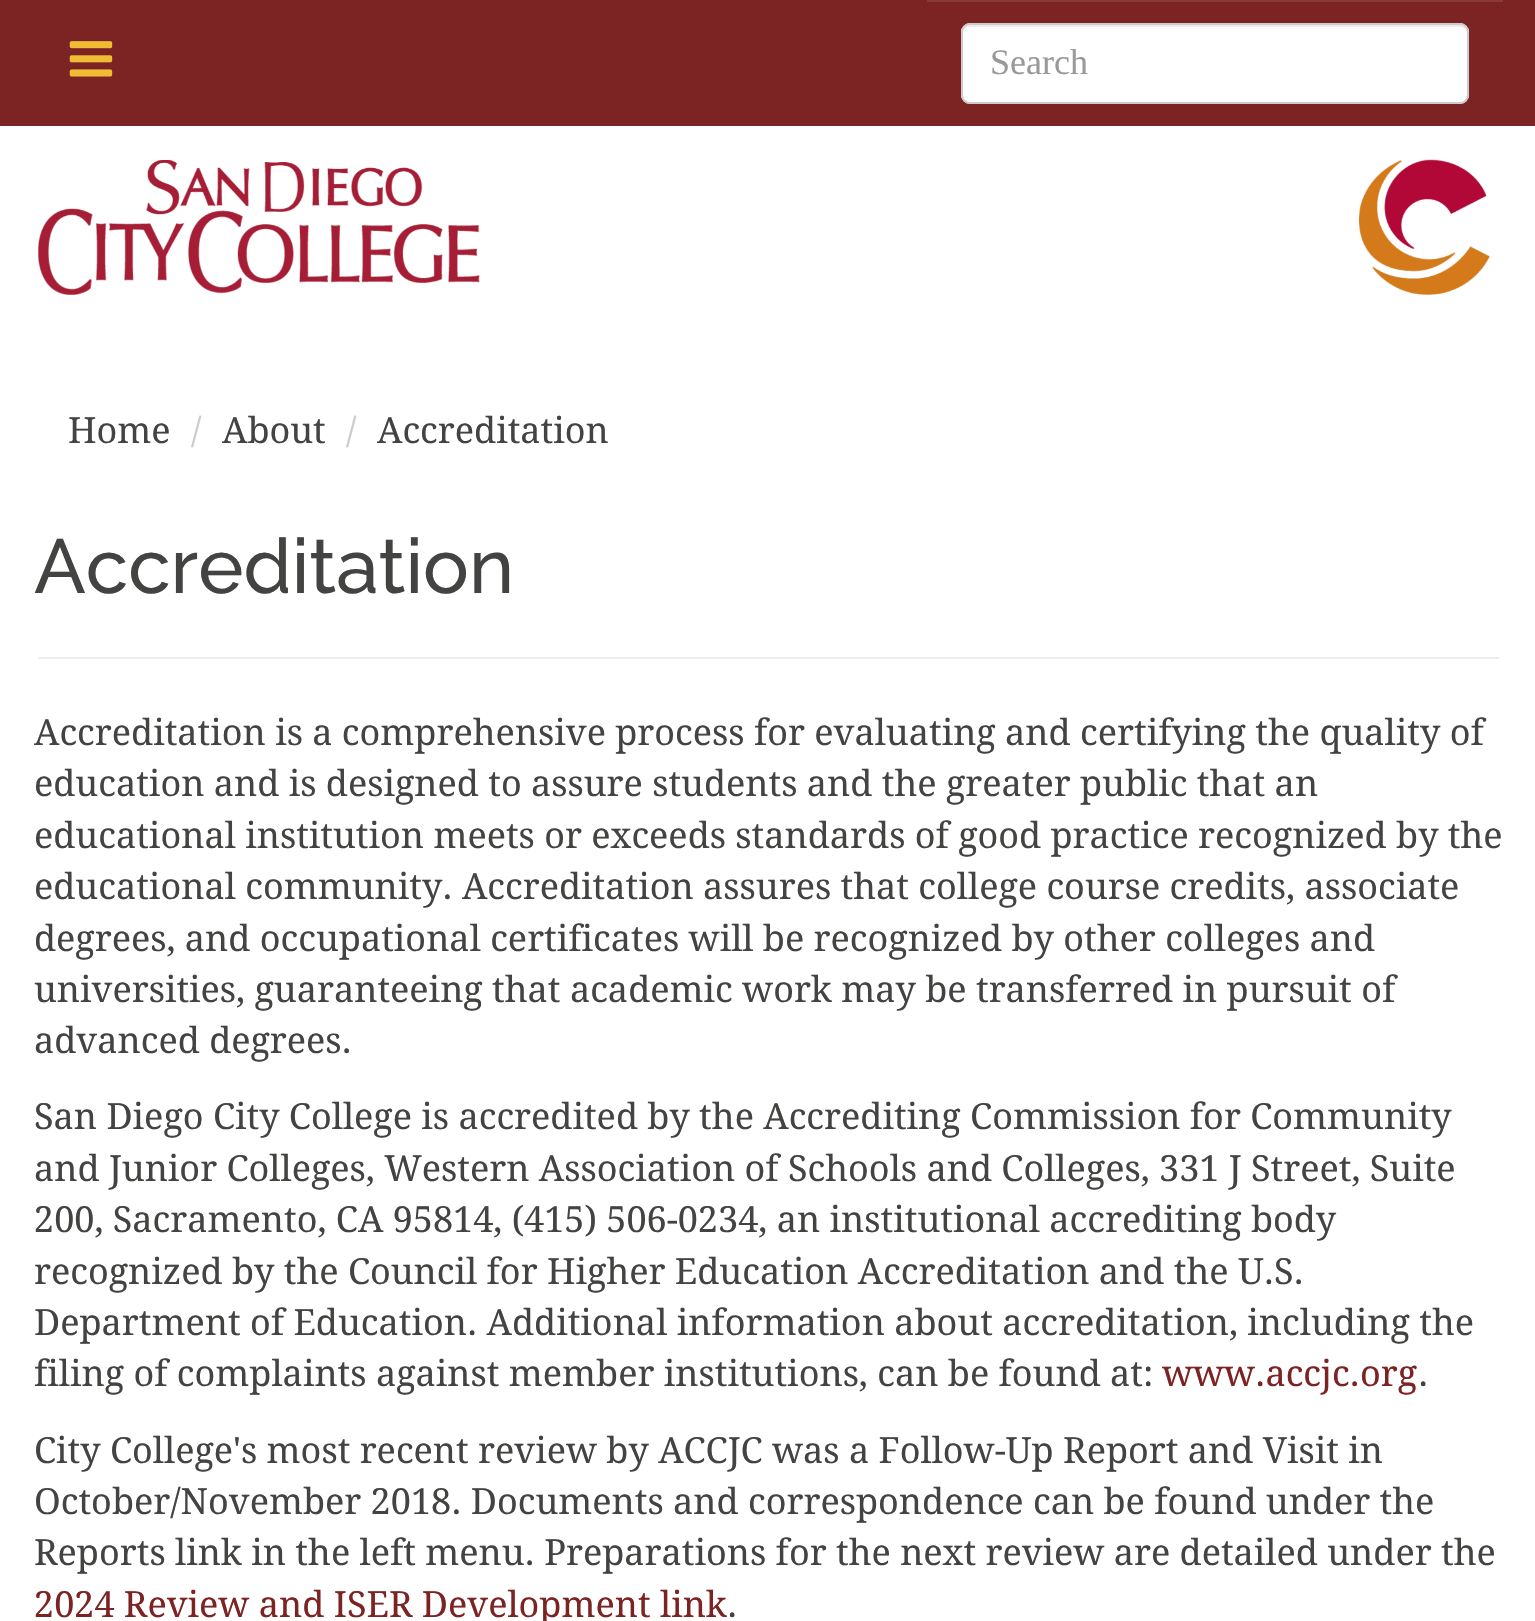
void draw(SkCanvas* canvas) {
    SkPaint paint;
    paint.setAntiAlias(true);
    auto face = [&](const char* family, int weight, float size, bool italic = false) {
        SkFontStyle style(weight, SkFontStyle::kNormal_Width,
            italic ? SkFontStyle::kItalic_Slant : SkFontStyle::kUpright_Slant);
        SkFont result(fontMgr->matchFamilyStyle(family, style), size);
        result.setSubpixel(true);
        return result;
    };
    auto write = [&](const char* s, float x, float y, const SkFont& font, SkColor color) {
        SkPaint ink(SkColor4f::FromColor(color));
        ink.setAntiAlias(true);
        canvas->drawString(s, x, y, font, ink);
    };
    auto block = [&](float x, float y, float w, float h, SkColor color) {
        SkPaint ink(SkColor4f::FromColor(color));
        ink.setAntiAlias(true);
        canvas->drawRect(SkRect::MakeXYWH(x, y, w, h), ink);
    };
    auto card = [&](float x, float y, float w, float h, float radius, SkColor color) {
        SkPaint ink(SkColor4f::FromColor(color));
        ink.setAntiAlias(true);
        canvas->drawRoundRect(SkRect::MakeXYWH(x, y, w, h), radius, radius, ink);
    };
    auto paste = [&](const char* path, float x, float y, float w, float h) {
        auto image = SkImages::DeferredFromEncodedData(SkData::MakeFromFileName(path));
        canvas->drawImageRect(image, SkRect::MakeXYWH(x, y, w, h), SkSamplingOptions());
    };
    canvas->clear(SK_ColorWHITE);
    block(0, 0, 1535, 126, SkColorSetRGB(124, 35, 36));
    paste("pic1.png", 69, 41, 44, 36);
    block(927, 0, 576, 2, SkColorSetRGB(137, 57, 58));
    card(961, 23, 508, 81, 9, SK_ColorWHITE);
    paint.setColor(SkColorSetRGB(236, 236, 236));
    canvas->drawPath(SkPathBuilder().moveTo(970, 27).lineTo(1460, 27).cubicTo(1464, 27, 1467, 30, 1467, 34).cubicTo(1467, 30, 1465, 25, 1460, 25).lineTo(970, 25).cubicTo(965, 25, 963, 30, 963, 34).cubicTo(963, 30, 966, 27, 970, 27).close().detach(), paint);
    paint.setStyle(SkPaint::kStroke_Style);
    paint.setStrokeWidth(2);
    paint.setColor(SkColorSetRGB(204, 204, 204));
    canvas->drawRoundRect(SkRect::MakeXYWH(962, 24, 506, 79), 8, 8, paint);
    auto kFont1 = face("Liberation Serif", 400, 36);
    write("Search", 990, 74, kFont1, SkColorSetRGB(153, 153, 153));
    paste("pic2.png", 38, 160, 442, 135);
    paste("pic3.png", 1359, 159, 131, 136);
    auto kFont2 = face("Droid Serif", 400, 36);
    write("Home", 68, 443, kFont2, SkColorSetRGB(67, 67, 66));
    write("/", 191, 443, kFont2, SkColorSetRGB(204, 204, 204));
    write("About", 222, 443, kFont2, SkColorSetRGB(67, 67, 66));
    write("/", 346, 443, kFont2, SkColorSetRGB(204, 204, 204));
    write("Accreditation", 377, 443, kFont2, SkColorSetRGB(67, 67, 66));
    block(38, 657, 1461, 2, SkColorSetRGB(238, 238, 238));
    auto kFont3 = face("Raleway", 500, 76.5f);
    write("Accreditation", 34, 593, kFont3, SkColorSetRGB(67, 67, 66));
    write("Accreditation is a comprehensive process for evaluating and certifying the quality of", 34, 745, kFont2, SkColorSetRGB(67, 67, 66));
    write("education and is designed to assure students and the greater public that an", 34, 796, kFont2, SkColorSetRGB(67, 67, 66));
    write("educational institution meets or exceeds standards of good practice recognized by the", 34, 848, kFont2, SkColorSetRGB(67, 67, 66));
    write("educational community. Accreditation assures that college course credits, associate", 34, 899, kFont2, SkColorSetRGB(67, 67, 66));
    write("degrees, and occupational certificates will be recognized by other colleges and", 34, 951, kFont2, SkColorSetRGB(67, 67, 66));
    write("universities, guaranteeing that academic work may be transferred in pursuit of", 34, 1002, kFont2, SkColorSetRGB(67, 67, 66));
    write("advanced degrees.", 34, 1053, kFont2, SkColorSetRGB(67, 67, 66));
    write("San Diego City College is accredited by the Accrediting Commission for Community", 34, 1129, kFont2, SkColorSetRGB(67, 67, 66));
    write("and Junior Colleges, Western Association of Schools and Colleges, 331 J Street, Suite", 34, 1181, kFont2, SkColorSetRGB(67, 67, 66));
    write("200, Sacramento, CA 95814, (415) 506-0234, an institutional accrediting body", 34, 1232, kFont2, SkColorSetRGB(67, 67, 66));
    write("recognized by the Council for Higher Education Accreditation and the U.S.", 34, 1284, kFont2, SkColorSetRGB(67, 67, 66));
    write("Department of Education. Additional information about accreditation, including the", 34, 1335, kFont2, SkColorSetRGB(67, 67, 66));
    write("filing of complaints against member institutions, can be found at:", 34, 1386, kFont2, SkColorSetRGB(67, 67, 66));
    write("www.accjc.org", 1162, 1386, kFont2, SkColorSetRGB(124, 35, 36));
    write(".", 1418, 1386, kFont2, SkColorSetRGB(67, 67, 66));
    write("City College's most recent review by ACCJC was a Follow-Up Report and Visit in", 34, 1463, kFont2, SkColorSetRGB(67, 67, 66));
    write("October/November 2018. Documents and correspondence can be found under the", 34, 1514, kFont2, SkColorSetRGB(67, 67, 66));
    write("Reports link in the left menu. Preparations for the next review are detailed under the", 34, 1565, kFont2, SkColorSetRGB(67, 67, 66));
    write("2024 Review and ISER Development link", 34, 1617, kFont2, SkColorSetRGB(124, 35, 36));
    write(".", 727, 1617, kFont2, SkColorSetRGB(67, 67, 66));
}
